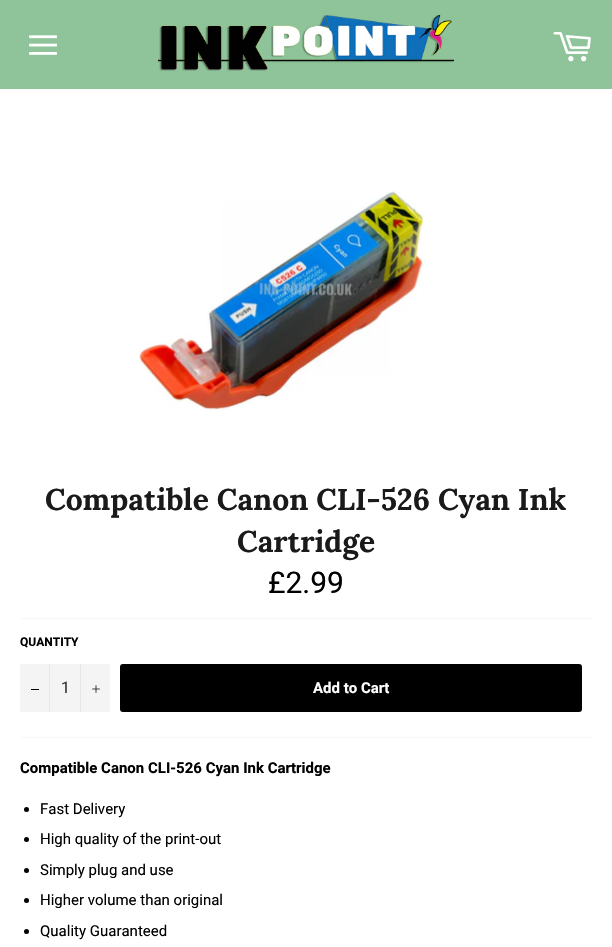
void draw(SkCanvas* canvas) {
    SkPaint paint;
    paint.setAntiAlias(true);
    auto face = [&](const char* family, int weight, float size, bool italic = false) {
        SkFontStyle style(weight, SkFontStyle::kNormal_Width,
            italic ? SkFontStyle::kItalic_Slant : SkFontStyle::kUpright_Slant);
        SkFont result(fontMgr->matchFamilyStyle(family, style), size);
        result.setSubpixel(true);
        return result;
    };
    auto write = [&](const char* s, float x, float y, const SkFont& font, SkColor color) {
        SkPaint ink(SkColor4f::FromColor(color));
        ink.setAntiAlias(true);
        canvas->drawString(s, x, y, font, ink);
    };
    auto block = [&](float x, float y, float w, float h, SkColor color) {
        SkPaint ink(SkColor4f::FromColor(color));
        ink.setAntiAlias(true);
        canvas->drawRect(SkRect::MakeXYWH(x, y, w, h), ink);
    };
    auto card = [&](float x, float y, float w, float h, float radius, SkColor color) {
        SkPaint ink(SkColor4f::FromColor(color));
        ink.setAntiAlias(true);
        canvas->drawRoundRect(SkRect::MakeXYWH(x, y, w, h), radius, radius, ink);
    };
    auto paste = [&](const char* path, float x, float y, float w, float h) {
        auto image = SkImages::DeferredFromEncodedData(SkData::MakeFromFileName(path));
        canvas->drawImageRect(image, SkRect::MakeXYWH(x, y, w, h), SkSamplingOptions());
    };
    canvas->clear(SkColorSetRGB(143, 196, 154));
    paste("pic1.png", 29, 35, 28, 20);
    paste("pic2.png", 158, 15, 296, 56);
    paste("pic3.png", 553, 32, 38, 30);
    block(0, 89, 612, 858, SK_ColorWHITE);
    paste("pic4.png", 139, 191, 287, 219);
    auto kFont1 = face("Lora", 700, 30);
    write("Compatible Canon CLI-526 Cyan Ink", 45, 510, kFont1, SkColorSetRGB(26, 26, 26));
    write("Cartridge", 237, 552, kFont1, SkColorSetRGB(26, 26, 26));
    auto kFont2 = face("Roboto", 400, 30);
    write("£2.99", 268, 593, kFont2, SK_ColorBLACK);
    block(20, 618, 572, 1, SkColorSetRGB(247, 247, 247));
    auto kFont3 = face("Roboto", 700, 12);
    write("QUANTITY", 20, 646, kFont3, SK_ColorBLACK);
    block(20, 664, 90, 48, SkColorSetRGB(244, 244, 244));
    block(49, 664, 1, 48, SkColorSetRGB(231, 231, 231));
    block(31, 689, 8, 1, SK_ColorBLACK);
    auto kFont4 = face("Roboto", 400, 16);
    write("1", 61, 693, kFont4, SkColorSetRGB(51, 51, 51));
    block(80, 664, 1, 48, SkColorSetRGB(231, 231, 231));
    paste("pic5.png", 92, 685, 8, 8);
    card(120, 664, 462, 48, 3, SK_ColorBLACK);
    auto kFont5 = face("Roboto", 700, 15);
    write("Add to Cart", 313, 693, kFont5, SK_ColorWHITE);
    block(20, 737, 572, 1, SkColorSetRGB(247, 247, 247));
    write("Compatible Canon CLI-526 Cyan Ink Cartridge", 20, 773, kFont5, SK_ColorBLACK);
    paint.setColor(SK_ColorBLACK);
    canvas->drawCircle(26.5f, 809.5f, 2.5f, paint);
    auto kFont6 = face("Roboto", 400, 15);
    write("Fast Delivery", 40, 814, kFont6, SK_ColorBLACK);
    canvas->drawCircle(26.5f, 839.5f, 2.5f, paint);
    write("High quality of the print-out", 40, 844, kFont6, SK_ColorBLACK);
    canvas->drawCircle(26.5f, 870.5f, 2.5f, paint);
    write("Simply plug and use", 40, 875, kFont6, SK_ColorBLACK);
    canvas->drawCircle(26.5f, 900.5f, 2.5f, paint);
    write("Higher volume than original", 40, 905, kFont6, SK_ColorBLACK);
    canvas->drawCircle(26.5f, 931.5f, 2.5f, paint);
    write("Quality Guaranteed", 40, 936, kFont6, SK_ColorBLACK);
}
